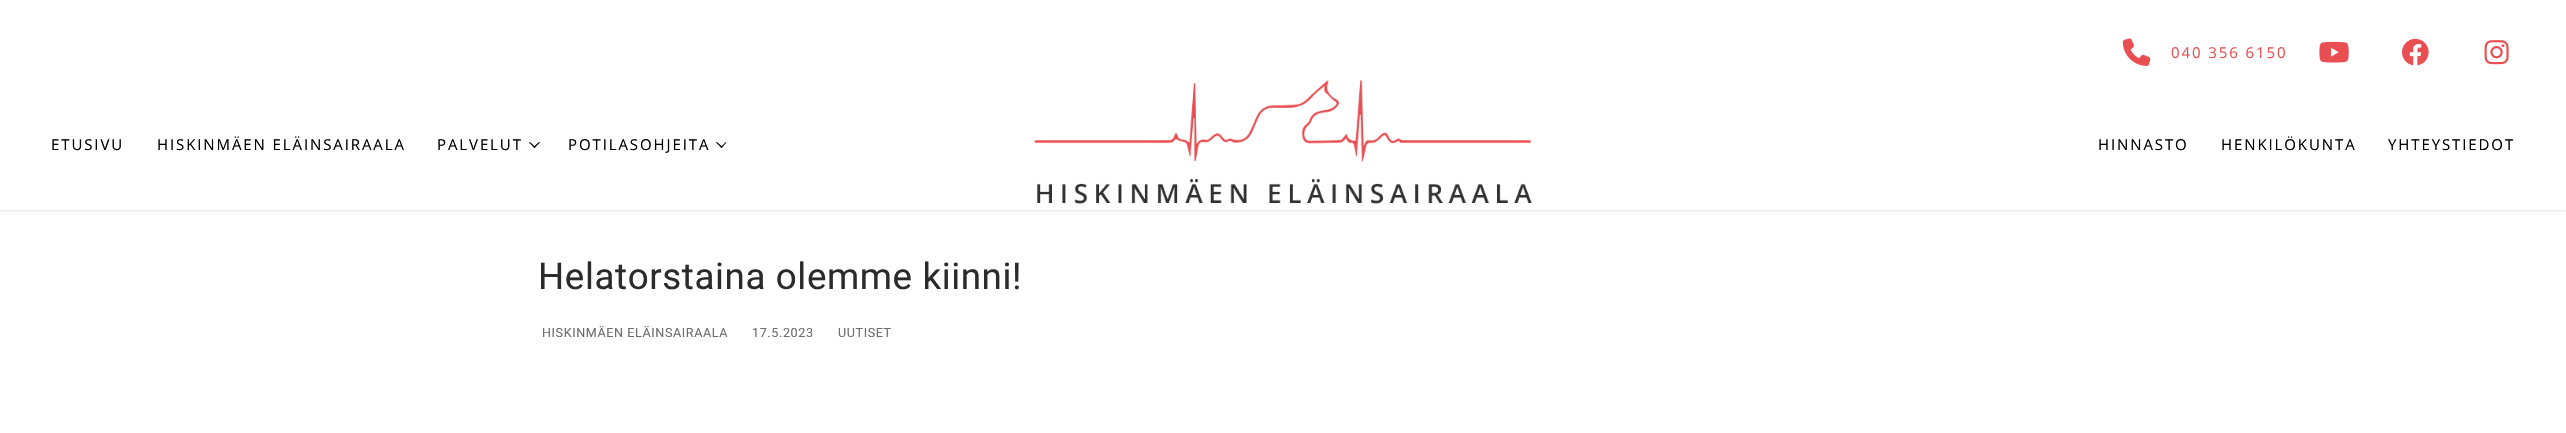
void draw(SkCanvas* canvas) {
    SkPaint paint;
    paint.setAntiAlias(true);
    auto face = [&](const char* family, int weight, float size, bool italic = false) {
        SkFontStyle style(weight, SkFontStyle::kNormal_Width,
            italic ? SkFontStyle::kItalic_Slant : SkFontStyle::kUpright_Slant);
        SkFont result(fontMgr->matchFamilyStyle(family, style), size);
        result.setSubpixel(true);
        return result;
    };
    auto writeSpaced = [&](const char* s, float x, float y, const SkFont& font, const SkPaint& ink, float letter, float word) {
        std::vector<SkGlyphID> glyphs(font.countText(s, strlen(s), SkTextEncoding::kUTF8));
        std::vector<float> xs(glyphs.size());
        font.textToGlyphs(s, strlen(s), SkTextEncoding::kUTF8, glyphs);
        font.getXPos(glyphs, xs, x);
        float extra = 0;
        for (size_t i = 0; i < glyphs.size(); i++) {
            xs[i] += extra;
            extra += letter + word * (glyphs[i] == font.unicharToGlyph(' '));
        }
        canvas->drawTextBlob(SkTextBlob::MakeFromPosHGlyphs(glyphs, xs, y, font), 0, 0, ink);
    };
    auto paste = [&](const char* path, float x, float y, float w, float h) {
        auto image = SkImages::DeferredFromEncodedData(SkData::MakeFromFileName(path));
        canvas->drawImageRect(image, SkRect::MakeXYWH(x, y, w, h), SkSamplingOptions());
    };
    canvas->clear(SK_ColorWHITE);
    paste("pic1.png", 2122, 38, 29, 28);
    auto kFont1 = face("Open Sans", 400, 15);
    paint.setColor(SkColorSetRGB(233, 79, 82));
    writeSpaced("040 356 6150", 2171, 58, kFont1, paint, 1.9f, 0);
    paste("pic2.png", 2319, 41, 30, 22);
    paste("pic3.png", 2402, 38, 27, 28);
    paste("pic4.png", 2484, 40, 25, 25);
    canvas->save();
    canvas->clipPath(SkPathBuilder(SkPathFillType::kEvenOdd).moveTo(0, 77).lineTo(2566, 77).lineTo(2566, 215).lineTo(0, 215).close().moveTo(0, 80).lineTo(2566, 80).lineTo(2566, 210).lineTo(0, 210).close().detach(), true);
    paint.setColor(SkColorSetRGB(225, 229, 234));
    paint.setMaskFilter(SkMaskFilter::MakeBlur(kNormal_SkBlurStyle, 1));
    canvas->drawRect(SkRect::MakeXYWH(0, 81, 2566, 130), paint);
    paint.setMaskFilter(nullptr);
    canvas->restore();
    paint.setColor(SK_ColorBLACK);
    writeSpaced("ETUSIVU", 51, 150, kFont1, paint, 1.9f, 0);
    writeSpaced("HISKINMÄEN ELÄINSAIRAALA", 157, 150, kFont1, paint, 1.9f, 0);
    writeSpaced("PALVELUT", 437, 150, kFont1, paint, 1.9f, 0);
    canvas->drawPath(SkPathBuilder().moveTo(534.5f, 148).lineTo(529, 142.5f).lineTo(530, 142).lineTo(535.5f, 147).close().detach(), paint);
    canvas->drawPath(SkPathBuilder().moveTo(534.5f, 148).lineTo(533.5f, 147).lineTo(539, 142).lineTo(540, 142.5f).close().detach(), paint);
    writeSpaced("POTILASOHJEITA", 568, 150, kFont1, paint, 1.9f, 0);
    canvas->drawPath(SkPathBuilder().moveTo(721.5f, 148).lineTo(716, 142.5f).lineTo(717, 142).lineTo(722.5f, 147).close().detach(), paint);
    canvas->drawPath(SkPathBuilder().moveTo(721.5f, 148).lineTo(720.5f, 147).lineTo(726, 142).lineTo(726.5f, 142.5f).close().detach(), paint);
    paste("pic5.png", 1034, 80, 498, 124);
    writeSpaced("HINNASTO", 2098, 150, kFont1, paint, 1.9f, 0);
    writeSpaced("HENKILÖKUNTA", 2221, 150, kFont1, paint, 1.9f, 0);
    writeSpaced("YHTEYSTIEDOT", 2388, 150, kFont1, paint, 1.9f, 0);
    auto kFont2 = face("Roboto", 400, 36.75f);
    paint.setColor(SkColorSetRGB(43, 43, 43));
    writeSpaced("Helatorstaina olemme kiinni!", 538, 289, kFont2, paint, 0.6f, 0);
    auto kFont3 = face("Roboto", 400, 12.6f);
    paint.setColor(SkColorSetRGB(109, 109, 109));
    writeSpaced("HISKINMÄEN ELÄINSAIRAALA", 542, 337, kFont3, paint, 0.6f, 0);
    writeSpaced("17.5.2023", 752, 337, kFont3, paint, 0.6f, 0);
    writeSpaced("UUTISET", 838, 337, kFont3, paint, 0.6f, 0);
}
